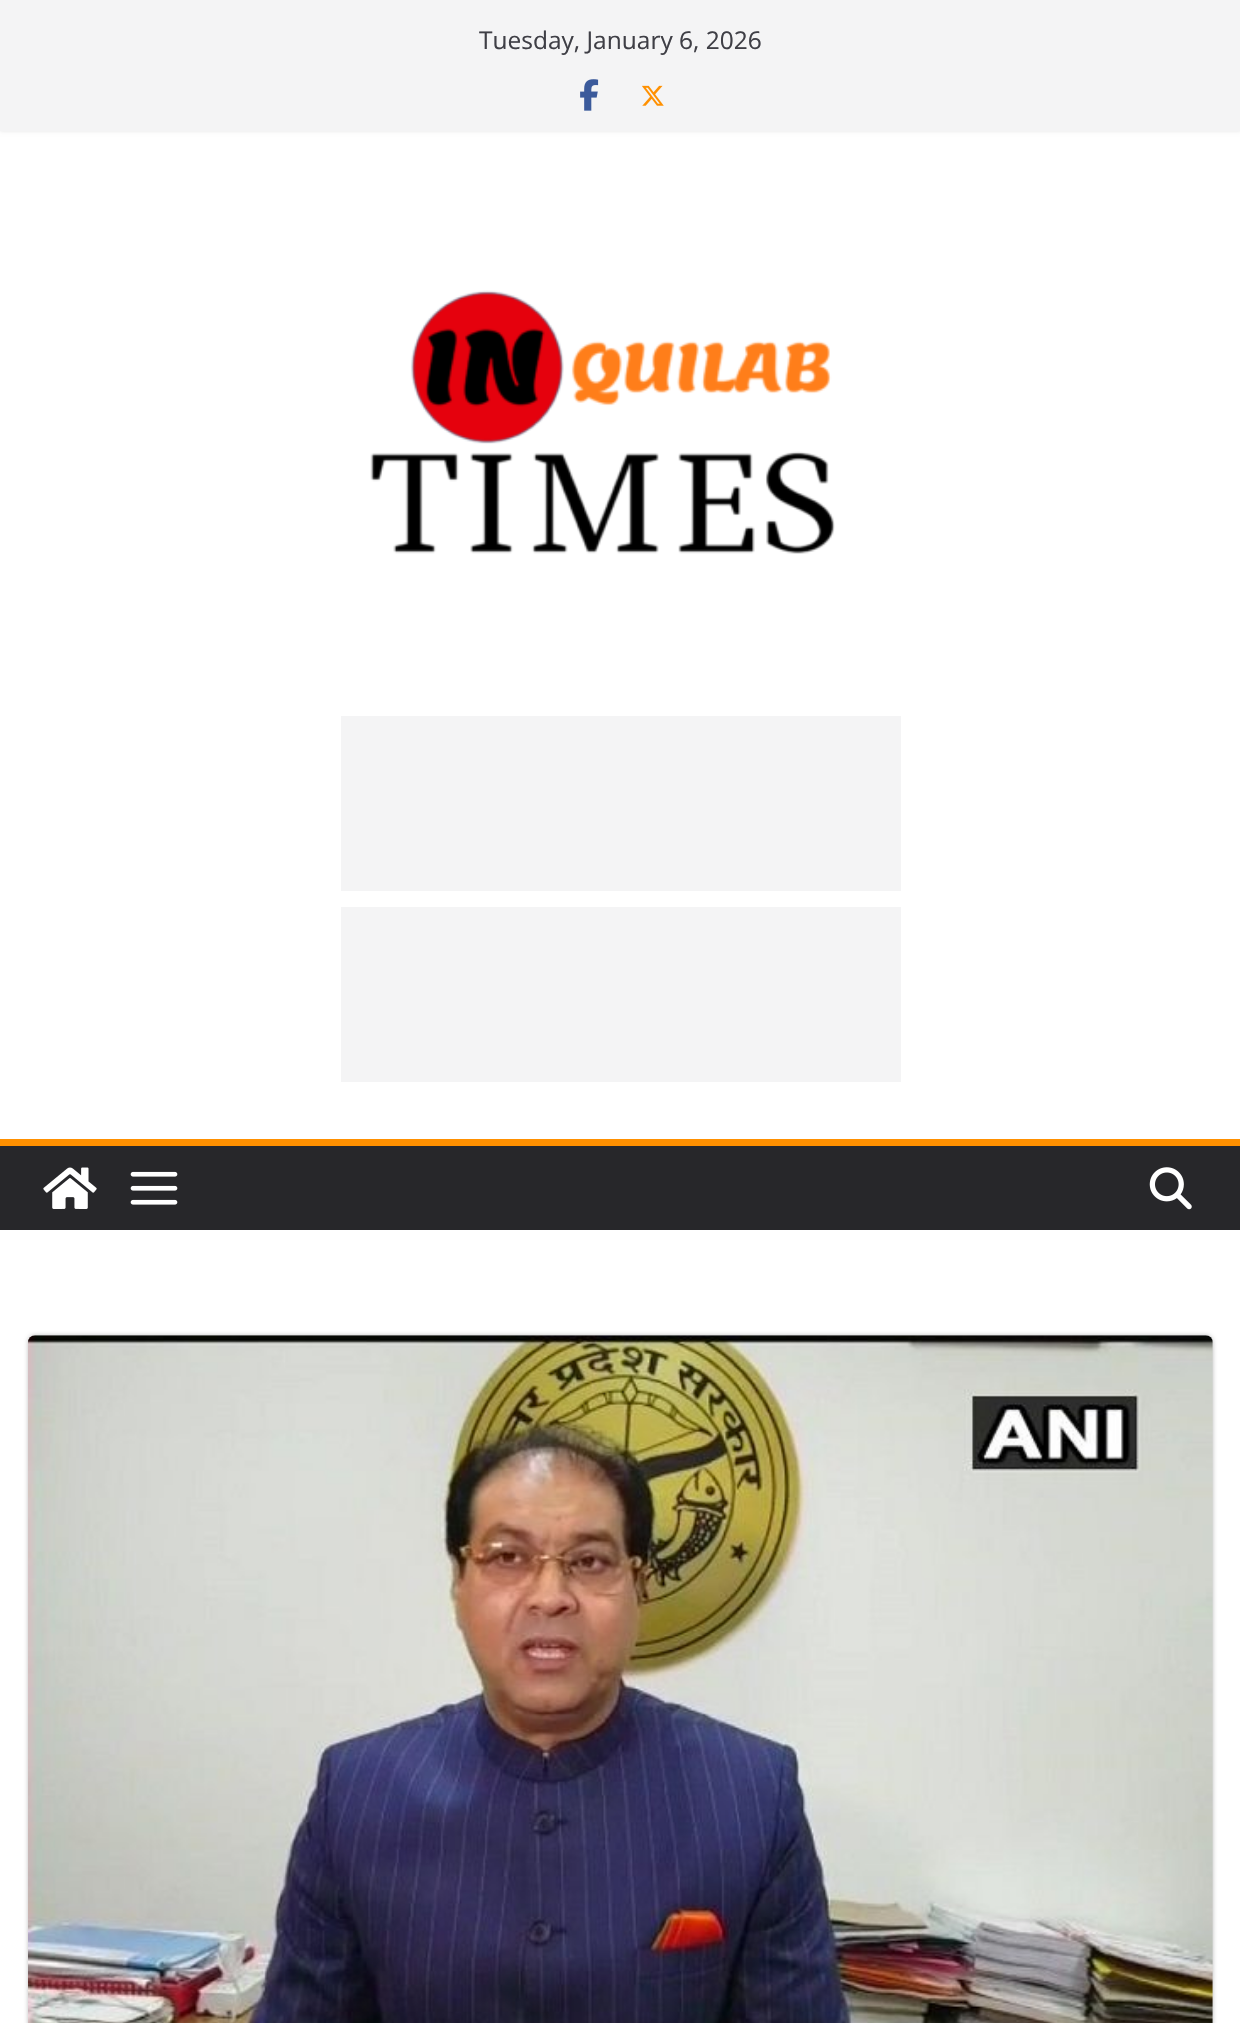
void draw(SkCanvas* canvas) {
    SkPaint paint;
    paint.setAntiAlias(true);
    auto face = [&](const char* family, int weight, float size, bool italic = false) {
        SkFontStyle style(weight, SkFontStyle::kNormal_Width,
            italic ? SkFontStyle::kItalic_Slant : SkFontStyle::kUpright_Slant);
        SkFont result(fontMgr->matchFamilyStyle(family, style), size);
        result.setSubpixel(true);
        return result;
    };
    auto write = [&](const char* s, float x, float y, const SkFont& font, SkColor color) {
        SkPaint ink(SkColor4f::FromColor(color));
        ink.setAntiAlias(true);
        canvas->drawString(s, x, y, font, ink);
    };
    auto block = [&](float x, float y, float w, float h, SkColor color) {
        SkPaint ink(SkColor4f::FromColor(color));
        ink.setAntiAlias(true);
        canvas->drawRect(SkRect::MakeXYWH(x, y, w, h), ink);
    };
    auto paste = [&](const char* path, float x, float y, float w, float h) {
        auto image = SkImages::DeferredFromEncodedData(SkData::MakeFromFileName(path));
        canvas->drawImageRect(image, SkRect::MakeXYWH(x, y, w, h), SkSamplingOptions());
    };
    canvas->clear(SK_ColorWHITE);
    paint.setColor(SkColorSetARGB(26, 0, 0, 0));
    paint.setMaskFilter(SkMaskFilter::MakeBlur(kNormal_SkBlurStyle, 2));
    canvas->drawRect(SkRect::MakeXYWH(0, 0, 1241, 131), paint);
    paint.setMaskFilter(nullptr);
    block(0, 0, 1240, 131, SkColorSetRGB(244, 244, 245));
    auto kFont1 = face("Open Sans", 400, 24.5f);
    write("Tuesday, January 6, 2026", 479, 49, kFont1, SkColorSetRGB(63, 63, 70));
    paste("pic1.png", 580, 79, 19, 32);
    paste("pic2.png", 642, 85, 22, 21);
    paste("pic3.png", 370, 290, 465, 264);
    block(341, 716, 560, 175, SkColorSetRGB(244, 244, 245));
    block(341, 907, 560, 175, SkColorSetRGB(244, 244, 245));
    block(0, 1146, 1240, 84, SkColorSetRGB(39, 39, 42));
    block(0, 1139, 1240, 7, SkColorSetRGB(255, 144, 0));
    paste("pic4.png", 43, 1167, 54, 42);
    paste("pic5.png", 130, 1171, 48, 34);
    paste("pic6.png", 1149, 1167, 43, 43);
    paint.setColor(SkColorSetARGB(61, 0, 0, 0));
    paint.setMaskFilter(SkMaskFilter::MakeBlur(kNormal_SkBlurStyle, 2));
    canvas->drawRoundRect(SkRect::MakeXYWH(28, 1335, 1185, 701), 7, 7, paint);
    paint.setMaskFilter(nullptr);
    paste("pic7.png", 28, 1335, 1185, 688);
}
